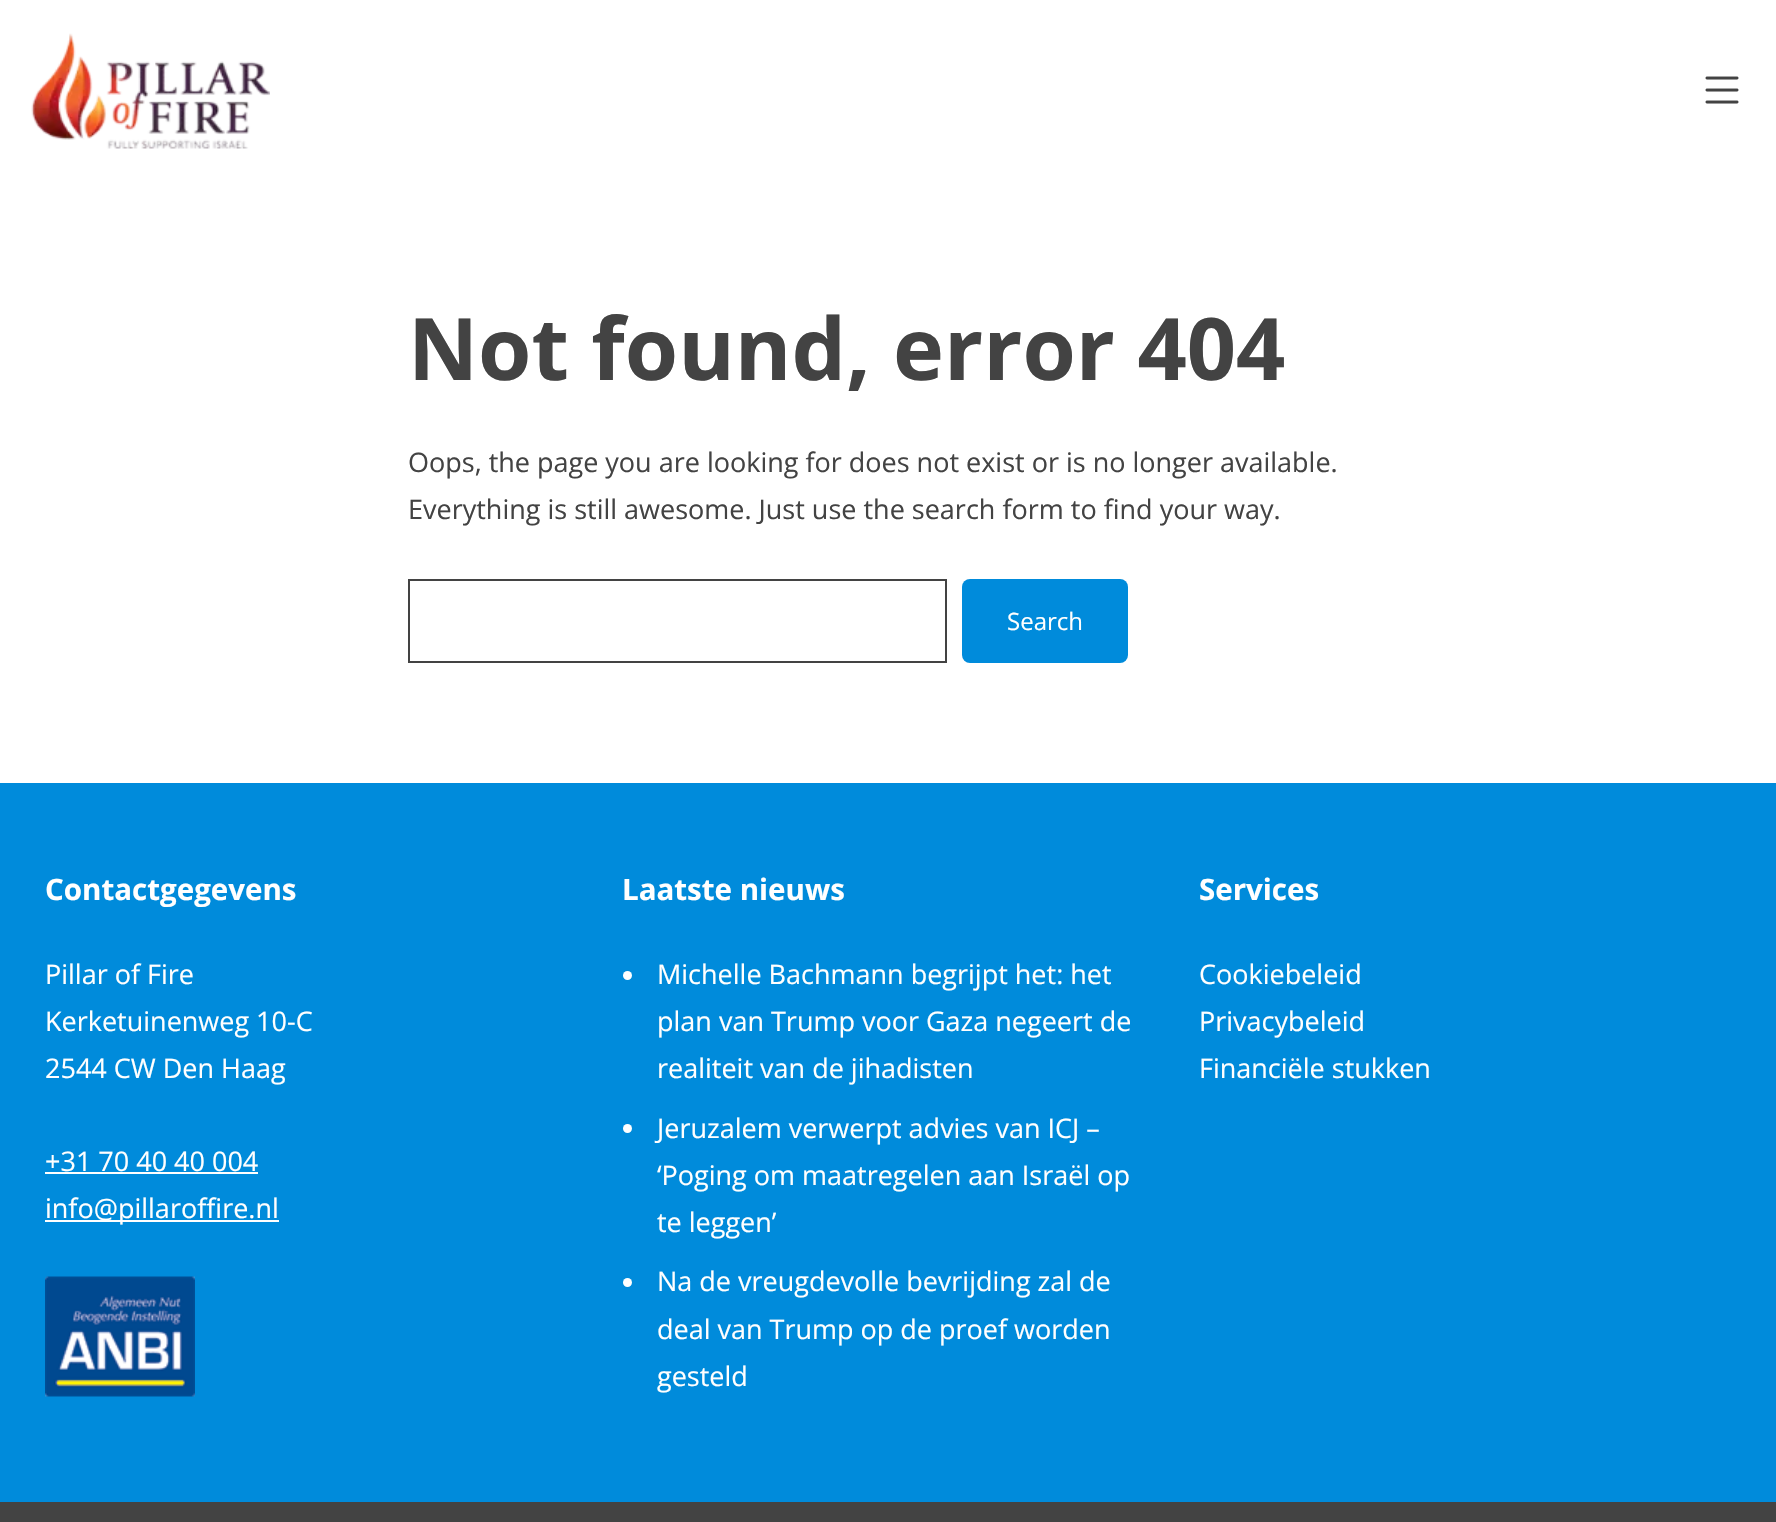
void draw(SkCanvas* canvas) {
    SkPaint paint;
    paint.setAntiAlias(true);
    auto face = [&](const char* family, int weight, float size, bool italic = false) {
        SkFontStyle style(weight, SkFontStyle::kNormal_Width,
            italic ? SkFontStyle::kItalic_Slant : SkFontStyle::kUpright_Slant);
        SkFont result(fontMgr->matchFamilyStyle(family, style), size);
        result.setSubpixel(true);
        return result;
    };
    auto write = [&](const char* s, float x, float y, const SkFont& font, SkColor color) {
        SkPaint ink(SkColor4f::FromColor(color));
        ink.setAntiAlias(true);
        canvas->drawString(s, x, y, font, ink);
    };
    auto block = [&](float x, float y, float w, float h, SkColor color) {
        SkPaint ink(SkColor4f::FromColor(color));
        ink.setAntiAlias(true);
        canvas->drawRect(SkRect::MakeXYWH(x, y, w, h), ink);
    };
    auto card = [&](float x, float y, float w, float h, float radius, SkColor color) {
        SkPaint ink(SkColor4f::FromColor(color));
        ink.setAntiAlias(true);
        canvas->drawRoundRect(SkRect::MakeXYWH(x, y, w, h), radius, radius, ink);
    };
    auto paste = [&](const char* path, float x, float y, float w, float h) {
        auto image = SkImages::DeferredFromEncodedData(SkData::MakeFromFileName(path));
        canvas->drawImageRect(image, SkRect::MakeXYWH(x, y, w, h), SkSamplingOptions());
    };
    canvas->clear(SK_ColorWHITE);
    paste("pic1.png", 31, 33, 239, 116);
    paste("pic2.png", 1705, 76, 34, 28);
    auto kFont1 = face("Open Sans", 700, 86.25f);
    write("Not found, error 404", 408, 380, kFont1, SkColorSetRGB(67, 67, 67));
    auto kFont2 = face("Open Sans", 400, 27);
    write("Oops, the page you are looking for does not exist or is no longer available.", 408, 472, kFont2, SkColorSetRGB(67, 67, 67));
    write("Everything is still awesome. Just use the search form to find your way.", 408, 519, kFont2, SkColorSetRGB(67, 67, 67));
    paint.setStyle(SkPaint::kStroke_Style);
    paint.setStrokeWidth(2);
    paint.setColor(SkColorSetRGB(67, 67, 67));
    canvas->drawRect(SkRect::MakeXYWH(409, 580, 537, 82), paint);
    card(962, 579, 166, 84, 8, SkColorSetRGB(0, 139, 219));
    auto kFont3 = face("Open Sans", 400, 24);
    write("Search", 1007, 630, kFont3, SK_ColorWHITE);
    block(0, 783, 1776, 719, SkColorSetRGB(0, 139, 219));
    auto kFont4 = face("Open Sans", 700, 29.5f);
    write("Contactgegevens", 45, 900, kFont4, SK_ColorWHITE);
    write("Pillar of Fire", 45, 984, kFont2, SK_ColorWHITE);
    write("Kerketuinenweg 10-C", 45, 1031, kFont2, SK_ColorWHITE);
    write("2544 CW Den Haag", 45, 1078, kFont2, SK_ColorWHITE);
    write("+31 70 40 40 004", 45, 1171, kFont2, SK_ColorWHITE);
    block(45, 1172, 213, 2, SK_ColorWHITE);
    block(45, 1220, 234, 2, SK_ColorWHITE);
    write("info@pillaroffire.nl", 45, 1218, kFont2, SK_ColorWHITE);
    paste("pic3.png", 45, 1276, 150, 121);
    write("Laatste nieuws", 622, 900, kFont4, SK_ColorWHITE);
    paint.setStyle(SkPaint::kFill_Style);
    paint.setColor(SK_ColorWHITE);
    canvas->drawCircle(627.5f, 975.5f, 4.5f, paint);
    write("Michelle Bachmann begrijpt het: het", 657, 984, kFont2, SK_ColorWHITE);
    write("plan van Trump voor Gaza negeert de", 657, 1031, kFont2, SK_ColorWHITE);
    write("realiteit van de jihadisten", 657, 1078, kFont2, SK_ColorWHITE);
    canvas->drawCircle(627.5f, 1128.5f, 4.5f, paint);
    write("Jeruzalem verwerpt advies van ICJ –", 657, 1138, kFont2, SK_ColorWHITE);
    write("‘Poging om maatregelen aan Israël op", 657, 1185, kFont2, SK_ColorWHITE);
    write("te leggen’", 657, 1232, kFont2, SK_ColorWHITE);
    canvas->drawCircle(627.5f, 1282.5f, 4.5f, paint);
    write("Na de vreugdevolle bevrijding zal de", 657, 1291, kFont2, SK_ColorWHITE);
    write("deal van Trump op de proef worden", 657, 1339, kFont2, SK_ColorWHITE);
    write("gesteld", 657, 1386, kFont2, SK_ColorWHITE);
    write("Services", 1199, 900, kFont4, SK_ColorWHITE);
    write("Cookiebeleid", 1199, 984, kFont2, SK_ColorWHITE);
    write("Privacybeleid", 1199, 1031, kFont2, SK_ColorWHITE);
    write("Financiële stukken", 1199, 1078, kFont2, SK_ColorWHITE);
    block(0, 1502, 1776, 20, SkColorSetRGB(67, 67, 67));
}
